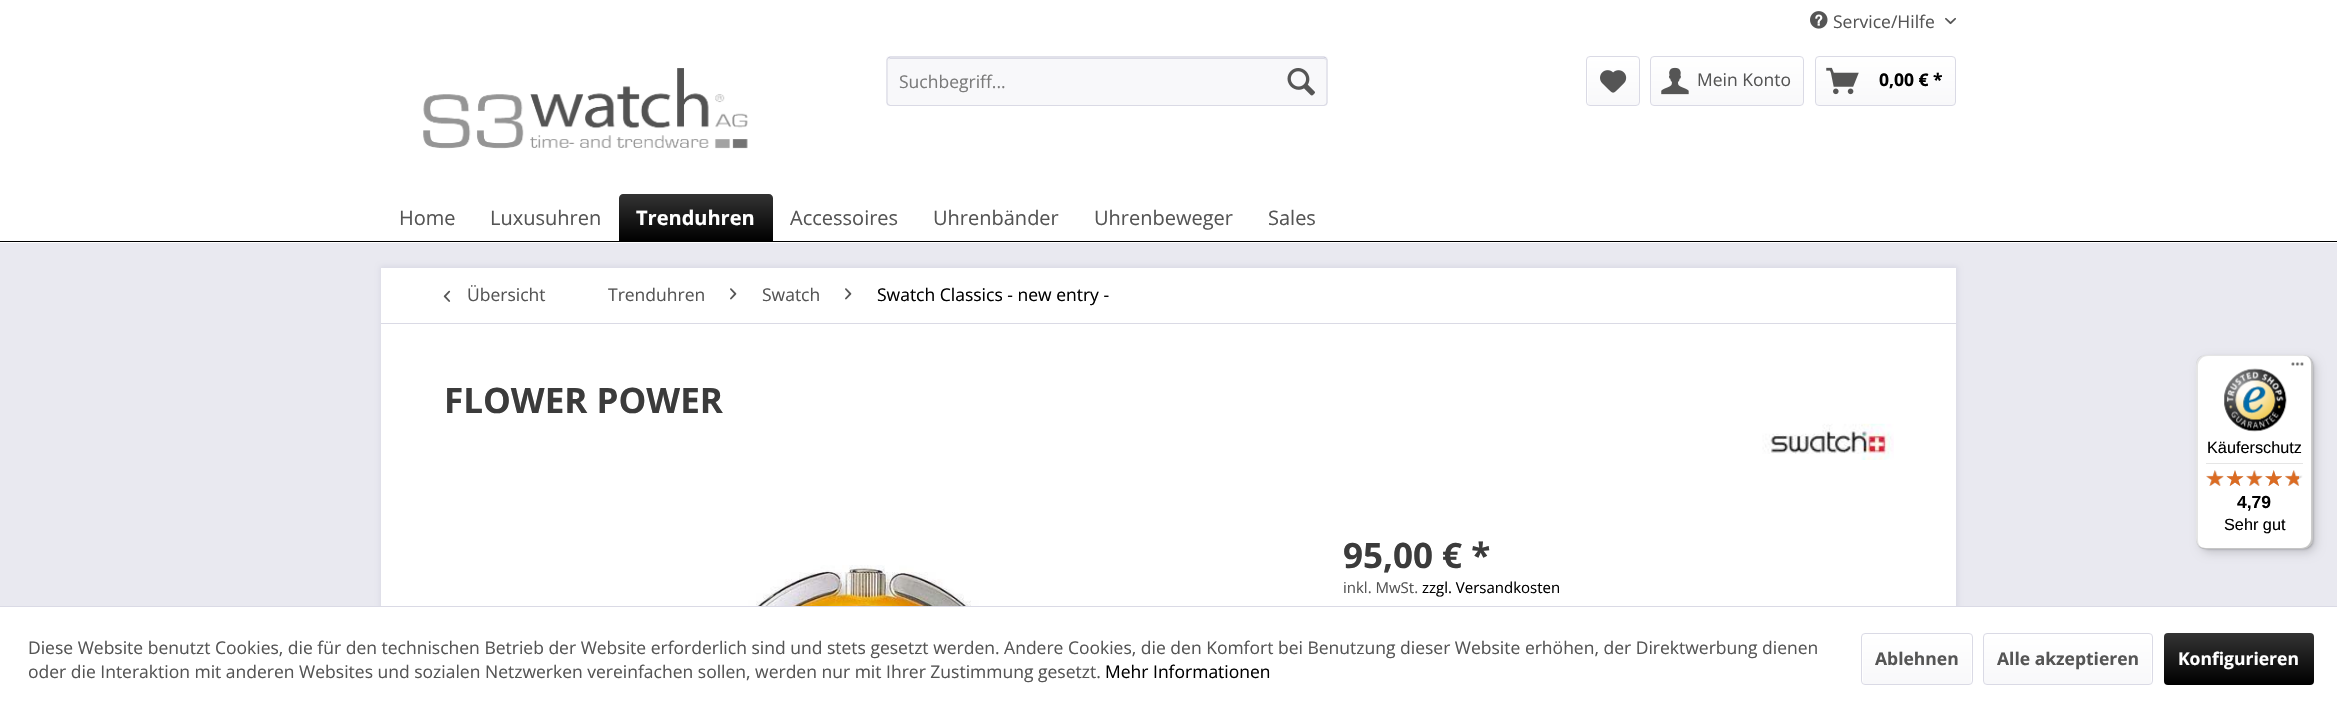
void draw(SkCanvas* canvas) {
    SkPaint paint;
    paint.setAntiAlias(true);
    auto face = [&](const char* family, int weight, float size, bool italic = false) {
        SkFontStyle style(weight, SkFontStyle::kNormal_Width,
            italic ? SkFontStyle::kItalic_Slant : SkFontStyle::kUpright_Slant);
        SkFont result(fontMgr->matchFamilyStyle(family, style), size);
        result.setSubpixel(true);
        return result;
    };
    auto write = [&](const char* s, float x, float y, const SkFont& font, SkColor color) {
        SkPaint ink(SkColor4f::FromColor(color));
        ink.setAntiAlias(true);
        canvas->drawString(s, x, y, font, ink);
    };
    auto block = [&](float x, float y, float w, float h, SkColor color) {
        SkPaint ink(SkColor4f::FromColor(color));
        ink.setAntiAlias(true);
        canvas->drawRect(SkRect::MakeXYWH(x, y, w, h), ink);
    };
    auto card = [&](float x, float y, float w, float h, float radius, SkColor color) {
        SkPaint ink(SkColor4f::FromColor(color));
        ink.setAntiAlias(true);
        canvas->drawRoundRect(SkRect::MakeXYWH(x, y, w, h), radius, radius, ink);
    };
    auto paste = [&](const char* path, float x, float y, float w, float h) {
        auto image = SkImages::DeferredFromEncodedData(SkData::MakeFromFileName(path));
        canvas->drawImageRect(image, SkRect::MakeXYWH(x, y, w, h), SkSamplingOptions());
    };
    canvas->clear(SkColorSetRGB(233, 233, 240));
    block(0, 0, 2337, 243, SK_ColorWHITE);
    paste("pic1.png", 1810, 11, 18, 18);
    auto kFont1 = face("Open Sans", 400, 17.5f);
    write("Service/Hilfe", 1833, 28, kFont1, SkColorSetRGB(85, 85, 85));
    paste("pic2.png", 1945, 17, 11, 8);
    paste("pic3.png", 423, 68, 325, 81);
    card(886, 56, 442, 50, 4, SkColorSetRGB(248, 248, 250));
    paint.setColor(SkColorSetRGB(218, 218, 229));
    canvas->drawPath(SkPathBuilder().moveTo(890, 59).lineTo(1324, 59).cubicTo(1325, 59, 1326, 60, 1326, 61).cubicTo(1326, 59, 1325, 58, 1324, 58).lineTo(890, 58).lineTo(889, 59).lineTo(888, 61).cubicTo(888, 60, 889, 59, 890, 59).close().detach(), paint);
    paint.setStyle(SkPaint::kStroke_Style);
    paint.setStrokeWidth(1.2f);
    paint.setColor(SkColorSetRGB(203, 203, 219));
    canvas->drawPath(SkPathBuilder().moveTo(888, 58).lineTo(890, 57).lineTo(1324, 57).lineTo(1326, 58).detach(), paint);
    paint.setColor(SkColorSetRGB(218, 218, 229));
    canvas->drawPath(SkPathBuilder().moveTo(1326, 58).lineTo(1327, 60).lineTo(1327, 102.5f).lineTo(1326, 104.5f).lineTo(1324, 105.5f).lineTo(890, 105.5f).lineTo(888, 104.5f).lineTo(887, 102.5f).lineTo(887, 60).lineTo(888, 58).detach(), paint);
    write("Suchbegriff...", 899, 88, kFont1, SkColorSetRGB(123, 123, 123));
    paste("pic4.png", 1287, 68, 28, 28);
    paint.setStyle(SkPaint::kFill_Style);
    {
        const SkColor colors[] = {SK_ColorWHITE, SkColorSetRGB(248, 248, 250)};
        const float stops[] = {0, 1};
        const SkPoint ends[] = {{1613, 58}, {1613, 105}};
        paint.setShader(SkGradientShader::MakeLinear(ends, colors, stops, 2, SkTileMode::kClamp));
        paint.setAlpha(255);
    }
    canvas->drawRoundRect(SkRect::MakeXYWH(1588, 58, 51, 47), 2.5f, 2.5f, paint);
    paint.setStyle(SkPaint::kStroke_Style);
    paint.setStrokeWidth(1);
    paint.setShader(nullptr);
    paint.setColor(SkColorSetRGB(218, 218, 229));
    canvas->drawRoundRect(SkRect::MakeXYWH(1586.5f, 56.5f, 53, 49), 3.5f, 3.5f, paint);
    paste("pic5.png", 1600, 70, 27, 23);
    paint.setStyle(SkPaint::kFill_Style);
    {
        const SkColor colors[] = {SK_ColorWHITE, SkColorSetRGB(248, 248, 250)};
        const float stops[] = {0, 1};
        const SkPoint ends[] = {{1727, 57}, {1727, 105}};
        paint.setShader(SkGradientShader::MakeLinear(ends, colors, stops, 2, SkTileMode::kClamp));
        paint.setAlpha(255);
    }
    canvas->drawRoundRect(SkRect::MakeXYWH(1651, 58, 152, 47), 2.5f, 2.5f, paint);
    paint.setStyle(SkPaint::kStroke_Style);
    paint.setShader(nullptr);
    paint.setColor(SkColorSetRGB(218, 218, 229));
    canvas->drawRoundRect(SkRect::MakeXYWH(1650.5f, 56.5f, 153, 49), 3.5f, 3.5f, paint);
    paste("pic6.png", 1661, 67, 28, 28);
    write("Mein Konto", 1697, 86, kFont1, SkColorSetRGB(85, 85, 85));
    paint.setStyle(SkPaint::kFill_Style);
    {
        const SkColor colors[] = {SK_ColorWHITE, SkColorSetRGB(248, 248, 250)};
        const float stops[] = {0, 1};
        const SkPoint ends[] = {{1886, 57}, {1886, 105}};
        paint.setShader(SkGradientShader::MakeLinear(ends, colors, stops, 2, SkTileMode::kClamp));
        paint.setAlpha(255);
    }
    canvas->drawRoundRect(SkRect::MakeXYWH(1816, 58, 139, 47), 2.5f, 2.5f, paint);
    paint.setStyle(SkPaint::kStroke_Style);
    paint.setShader(nullptr);
    paint.setColor(SkColorSetRGB(218, 218, 229));
    canvas->drawRoundRect(SkRect::MakeXYWH(1815.5f, 56.5f, 140, 49), 3.5f, 3.5f, paint);
    paste("pic7.png", 1826, 67, 33, 28);
    auto kFont2 = face("Open Sans", 700, 17.5f);
    write("0,00 € *", 1879, 86, kFont2, SK_ColorBLACK);
    block(0, 241, 2337, 1, SK_ColorBLACK);
    auto kFont3 = face("Open Sans", 400, 20);
    write("Home", 399, 225, kFont3, SkColorSetRGB(85, 85, 85));
    write("Luxusuhren", 490, 225, kFont3, SkColorSetRGB(85, 85, 85));
    paint.setStyle(SkPaint::kFill_Style);
    {
        const SkColor colors[] = {SkColorSetRGB(51, 51, 51), SK_ColorBLACK};
        const float stops[] = {0, 1};
        const SkPoint ends[] = {{696, 194}, {696, 241}};
        paint.setShader(SkGradientShader::MakeLinear(ends, colors, stops, 2, SkTileMode::kClamp));
        paint.setAlpha(255);
    }
    canvas->drawPath(SkPathBuilder().moveTo(623, 194).lineTo(769, 194).cubicTo(771, 194, 773, 196, 773, 198).lineTo(773, 241).lineTo(619, 241).lineTo(619, 198).cubicTo(619, 196, 621, 194, 623, 194).close().detach(), paint);
    auto kFont4 = face("Open Sans", 700, 20);
    write("Trenduhren", 636, 225, kFont4, SK_ColorWHITE);
    write("Accessoires", 790, 225, kFont3, SkColorSetRGB(85, 85, 85));
    write("Uhrenbänder", 933, 225, kFont3, SkColorSetRGB(85, 85, 85));
    write("Uhrenbeweger", 1094, 225, kFont3, SkColorSetRGB(85, 85, 85));
    write("Sales", 1268, 225, kFont3, SkColorSetRGB(85, 85, 85));
    paint.setShader(nullptr);
    paint.setColor(SkColorSetRGB(218, 218, 229));
    paint.setMaskFilter(SkMaskFilter::MakeBlur(kNormal_SkBlurStyle, 2.5f));
    canvas->drawRect(SkRect::MakeXYWH(380, 266, 1578, 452), paint);
    paint.setMaskFilter(nullptr);
    block(381, 268, 1575, 338, SK_ColorWHITE);
    block(381, 323, 1575, 1, SkColorSetRGB(218, 218, 229));
    paste("pic8.png", 443, 290, 8, 12);
    write("Übersicht", 467, 301, kFont1, SkColorSetRGB(85, 85, 85));
    write("Trenduhren", 608, 301, kFont1, SkColorSetRGB(85, 85, 85));
    paste("pic9.png", 730, 288, 7, 12);
    write("Swatch", 762, 301, kFont1, SkColorSetRGB(85, 85, 85));
    paste("pic9.png", 845, 288, 7, 12);
    write("Swatch Classics - new entry -", 877, 301, kFont1, SK_ColorBLACK);
    auto kFont5 = face("Open Sans", 700, 35);
    write("FLOWER POWER", 444, 413, kFont5, SkColorSetRGB(59, 59, 59));
    paste("pic10.png", 1762, 423, 132, 37);
    paste("pic11.png", 699, 565, 332, 41);
    write("95,00 € *", 1343, 568, kFont5, SkColorSetRGB(59, 59, 59));
    auto kFont6 = face("Open Sans", 400, 15);
    write("inkl. MwSt.", 1343, 593, kFont6, SkColorSetRGB(85, 85, 85));
    write("zzgl. Versandkosten", 1422, 593, kFont6, SK_ColorBLACK);
    paint.setColor(SkColorSetARGB(38, 0, 0, 0));
    paint.setMaskFilter(SkMaskFilter::MakeBlur(kNormal_SkBlurStyle, 5));
    canvas->drawRoundRect(SkRect::MakeXYWH(2200, 359, 116, 194), 10, 10, paint);
    paint.setMaskFilter(nullptr);
    paint.setMaskFilter(SkMaskFilter::MakeBlur(kNormal_SkBlurStyle, 1));
    canvas->drawRoundRect(SkRect::MakeXYWH(2198, 356, 116, 194), 10, 10, paint);
    paint.setMaskFilter(nullptr);
    card(2196, 355, 117, 194, 10, SK_ColorWHITE);
    paint.setColor(SkColorSetARGB(26, 0, 0, 0));
    canvas->drawPath(SkPathBuilder().moveTo(2208, 356).lineTo(2304, 356).cubicTo(2307, 356, 2310, 358, 2312, 360).cubicTo(2310, 357, 2307, 355, 2303, 355).lineTo(2206, 355).cubicTo(2200, 355, 2196, 359, 2196, 365).lineTo(2196, 539).cubicTo(2196, 543, 2198, 546, 2202, 548).cubicTo(2199, 546, 2198, 543, 2198, 540).lineTo(2198, 366).cubicTo(2198, 361, 2202, 356, 2208, 356).close().detach(), paint);
    paint.setColor(SkColorSetARGB(51, 0, 0, 0));
    canvas->drawPath(SkPathBuilder().moveTo(2198, 546).cubicTo(2200, 548, 2203, 549, 2206, 549).lineTo(2303, 549).cubicTo(2309, 549, 2313, 545, 2313, 539).lineTo(2313, 365).cubicTo(2313, 361, 2311, 358, 2307, 356).cubicTo(2310, 358, 2311, 361, 2311, 364).lineTo(2311, 538).cubicTo(2311, 543, 2307, 548, 2301, 548).lineTo(2205, 548).cubicTo(2202, 548, 2200, 547, 2198, 546).close().detach(), paint);
    paint.setColor(SkColorSetARGB(51, 50, 50, 50));
    canvas->drawPath(SkPathBuilder().moveTo(2196, 538).lineTo(2196, 539).cubicTo(2196, 545, 2200, 549, 2206, 549).lineTo(2303, 549).cubicTo(2309, 549, 2313, 545, 2313, 539).lineTo(2313, 365).cubicTo(2313, 361, 2311, 358, 2308, 356).cubicTo(2310, 358, 2312, 361, 2312, 364).lineTo(2312, 538).cubicTo(2312, 544, 2307, 548, 2302, 548).lineTo(2206, 548).cubicTo(2200, 548, 2196, 544, 2196, 538).close().detach(), paint);
    paint.setColor(SkColorSetARGB(77, 255, 255, 255));
    canvas->drawPath(SkPathBuilder().moveTo(2196, 538).lineTo(2196, 539).cubicTo(2196, 545, 2200, 549, 2206, 549).lineTo(2303, 549).cubicTo(2309, 549, 2313, 545, 2313, 539).lineTo(2313, 365).cubicTo(2313, 361, 2311, 358, 2308, 356).cubicTo(2310, 358, 2312, 361, 2312, 364).lineTo(2312, 538).cubicTo(2312, 544, 2307, 548, 2302, 548).lineTo(2206, 548).cubicTo(2200, 548, 2196, 544, 2196, 538).close().detach(), paint);
    paste("pic12.png", 2291, 362, 13, 4);
    paste("pic13.png", 2224, 368, 63, 64);
    auto kFont7 = face("Liberation Sans", 400, 16.25f);
    write("Käuferschutz", 2207, 453, kFont7, SK_ColorBLACK);
    block(2206, 463, 97, 1, SkColorSetRGB(229, 229, 229));
    paste("pic14.png", 2206, 470, 18, 16);
    paste("pic15.png", 2226, 470, 18, 16);
    paste("pic16.png", 2246, 470, 17, 16);
    paste("pic17.png", 2265, 470, 17, 16);
    paste("pic18.png", 2285, 470, 18, 16);
    paste("pic19.png", 2206, 470, 18, 16);
    paste("pic20.png", 2226, 470, 18, 16);
    paste("pic21.png", 2246, 470, 17, 16);
    paste("pic22.png", 2265, 470, 17, 16);
    paste("pic23.png", 2285, 470, 14, 16);
    auto kFont8 = face("Liberation Sans", 700, 17.5f);
    write("4,79", 2237, 508, kFont8, SK_ColorBLACK);
    write("Sehr gut", 2224, 530, kFont7, SK_ColorBLACK);
    block(0, 607, 2337, 103, SK_ColorWHITE);
    block(0, 606, 2337, 1, SkColorSetRGB(218, 218, 229));
    write("Diese Website benutzt Cookies, die für den technischen Betrieb der Website erforderlich sind und stets gesetzt werden. Andere Cookies, die den Komfort bei Benutzung dieser Website erhöhen, der Direktwerbung dienen", 28, 654, kFont1, SkColorSetRGB(85, 85, 85));
    write("oder die Interaktion mit anderen Websites und sozialen Netzwerken vereinfachen sollen, werden nur mit Ihrer Zustimmung gesetzt.", 28, 678, kFont1, SkColorSetRGB(85, 85, 85));
    write("Mehr Informationen", 1105, 678, kFont1, SK_ColorBLACK);
    {
        const SkColor colors[] = {SK_ColorWHITE, SkColorSetRGB(248, 248, 250)};
        const float stops[] = {0, 1};
        const SkPoint ends[] = {{1917, 634}, {1917, 684}};
        paint.setShader(SkGradientShader::MakeLinear(ends, colors, stops, 2, SkTileMode::kClamp));
        paint.setAlpha(255);
    }
    canvas->drawRoundRect(SkRect::MakeXYWH(1863, 634, 108, 50), 2.5f, 2.5f, paint);
    paint.setStyle(SkPaint::kStroke_Style);
    paint.setShader(nullptr);
    paint.setColor(SkColorSetRGB(218, 218, 229));
    canvas->drawRoundRect(SkRect::MakeXYWH(1861.5f, 633.5f, 111, 51), 3.5f, 3.5f, paint);
    write("Ablehnen", 1875, 665, kFont2, SkColorSetRGB(85, 85, 85));
    paint.setStyle(SkPaint::kFill_Style);
    {
        const SkColor colors[] = {SK_ColorWHITE, SkColorSetRGB(248, 248, 250)};
        const float stops[] = {0, 1};
        const SkPoint ends[] = {{2068, 634}, {2068, 684}};
        paint.setShader(SkGradientShader::MakeLinear(ends, colors, stops, 2, SkTileMode::kClamp));
        paint.setAlpha(255);
    }
    canvas->drawRoundRect(SkRect::MakeXYWH(1984, 634, 167, 50), 2.5f, 2.5f, paint);
    paint.setStyle(SkPaint::kStroke_Style);
    paint.setShader(nullptr);
    paint.setColor(SkColorSetRGB(218, 218, 229));
    canvas->drawRoundRect(SkRect::MakeXYWH(1983.5f, 633.5f, 169, 51), 3.5f, 3.5f, paint);
    write("Alle akzeptieren", 1997, 665, kFont2, SkColorSetRGB(85, 85, 85));
    paint.setStyle(SkPaint::kFill_Style);
    {
        const SkColor colors[] = {SkColorSetRGB(51, 51, 51), SK_ColorBLACK};
        const float stops[] = {0, 1};
        const SkPoint ends[] = {{2239, 633}, {2239, 685}};
        paint.setShader(SkGradientShader::MakeLinear(ends, colors, stops, 2, SkTileMode::kClamp));
        paint.setAlpha(255);
    }
    canvas->drawRoundRect(SkRect::MakeXYWH(2164, 633, 150, 52), 4, 4, paint);
    write("Konfigurieren", 2178, 665, kFont2, SK_ColorWHITE);
}
